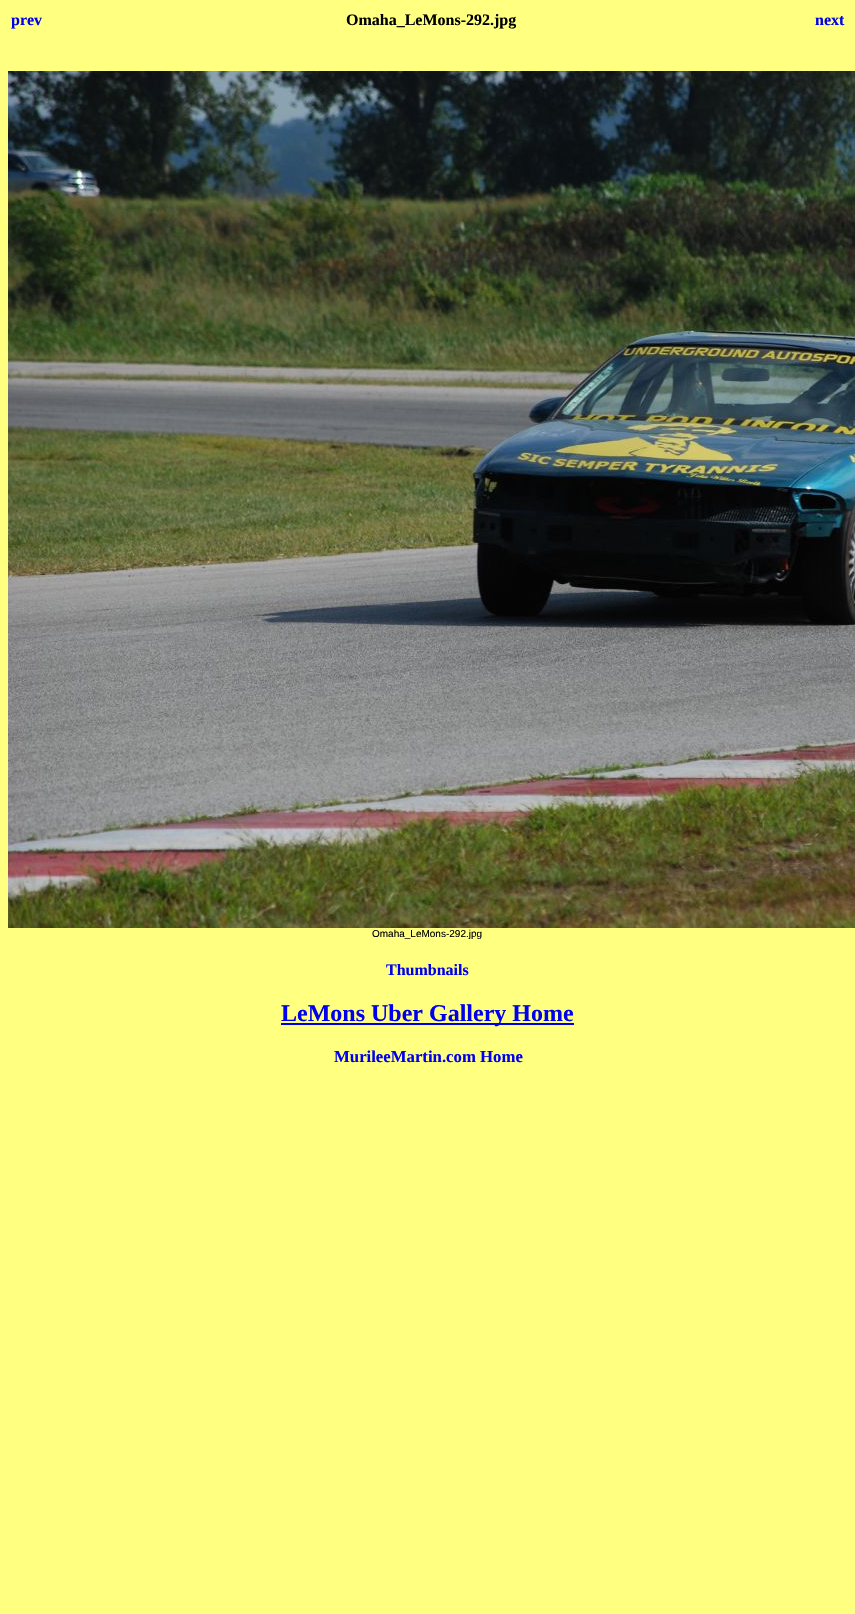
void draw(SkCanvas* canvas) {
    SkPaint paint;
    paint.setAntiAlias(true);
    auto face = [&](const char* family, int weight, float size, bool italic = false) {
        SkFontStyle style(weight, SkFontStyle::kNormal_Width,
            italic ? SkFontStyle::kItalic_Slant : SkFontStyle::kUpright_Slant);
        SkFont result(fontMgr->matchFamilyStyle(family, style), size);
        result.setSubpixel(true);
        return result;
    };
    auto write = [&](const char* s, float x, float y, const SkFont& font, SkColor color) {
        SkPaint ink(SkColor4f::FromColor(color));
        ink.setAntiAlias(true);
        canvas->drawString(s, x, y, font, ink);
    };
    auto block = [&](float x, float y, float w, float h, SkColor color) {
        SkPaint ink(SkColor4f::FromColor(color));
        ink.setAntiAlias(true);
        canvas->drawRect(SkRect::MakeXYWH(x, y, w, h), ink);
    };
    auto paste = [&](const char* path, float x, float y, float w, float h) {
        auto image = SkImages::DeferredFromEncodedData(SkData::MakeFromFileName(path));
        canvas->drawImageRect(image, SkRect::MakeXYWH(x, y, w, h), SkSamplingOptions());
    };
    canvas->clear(SkColorSetRGB(255, 255, 128));
    auto kFont1 = face("Liberation Serif", 700, 16);
    write("prev", 11, 25, kFont1, SkColorSetRGB(0, 0, 238));
    write("Omaha_LeMons-292.jpg", 346, 25, kFont1, SK_ColorBLACK);
    write("next", 815, 25, kFont1, SkColorSetRGB(0, 0, 238));
    paste("pic1.png", 8, 71, 847, 857);
    auto kFont2 = face("Liberation Sans", 400, 10);
    write("Omaha_LeMons-292.jpg", 372, 937, kFont2, SK_ColorBLACK);
    write("Thumbnails", 386, 975, kFont1, SkColorSetRGB(0, 0, 238));
    block(281, 1023, 293, 2, SkColorSetRGB(0, 0, 238));
    auto kFont3 = face("Liberation Serif", 700, 24);
    write("LeMons Uber Gallery Home", 281, 1021, kFont3, SkColorSetRGB(0, 0, 238));
    auto kFont4 = face("Liberation Serif", 700, 16.75f);
    write("MurileeMartin.com Home", 334, 1062, kFont4, SkColorSetRGB(0, 0, 238));
}
